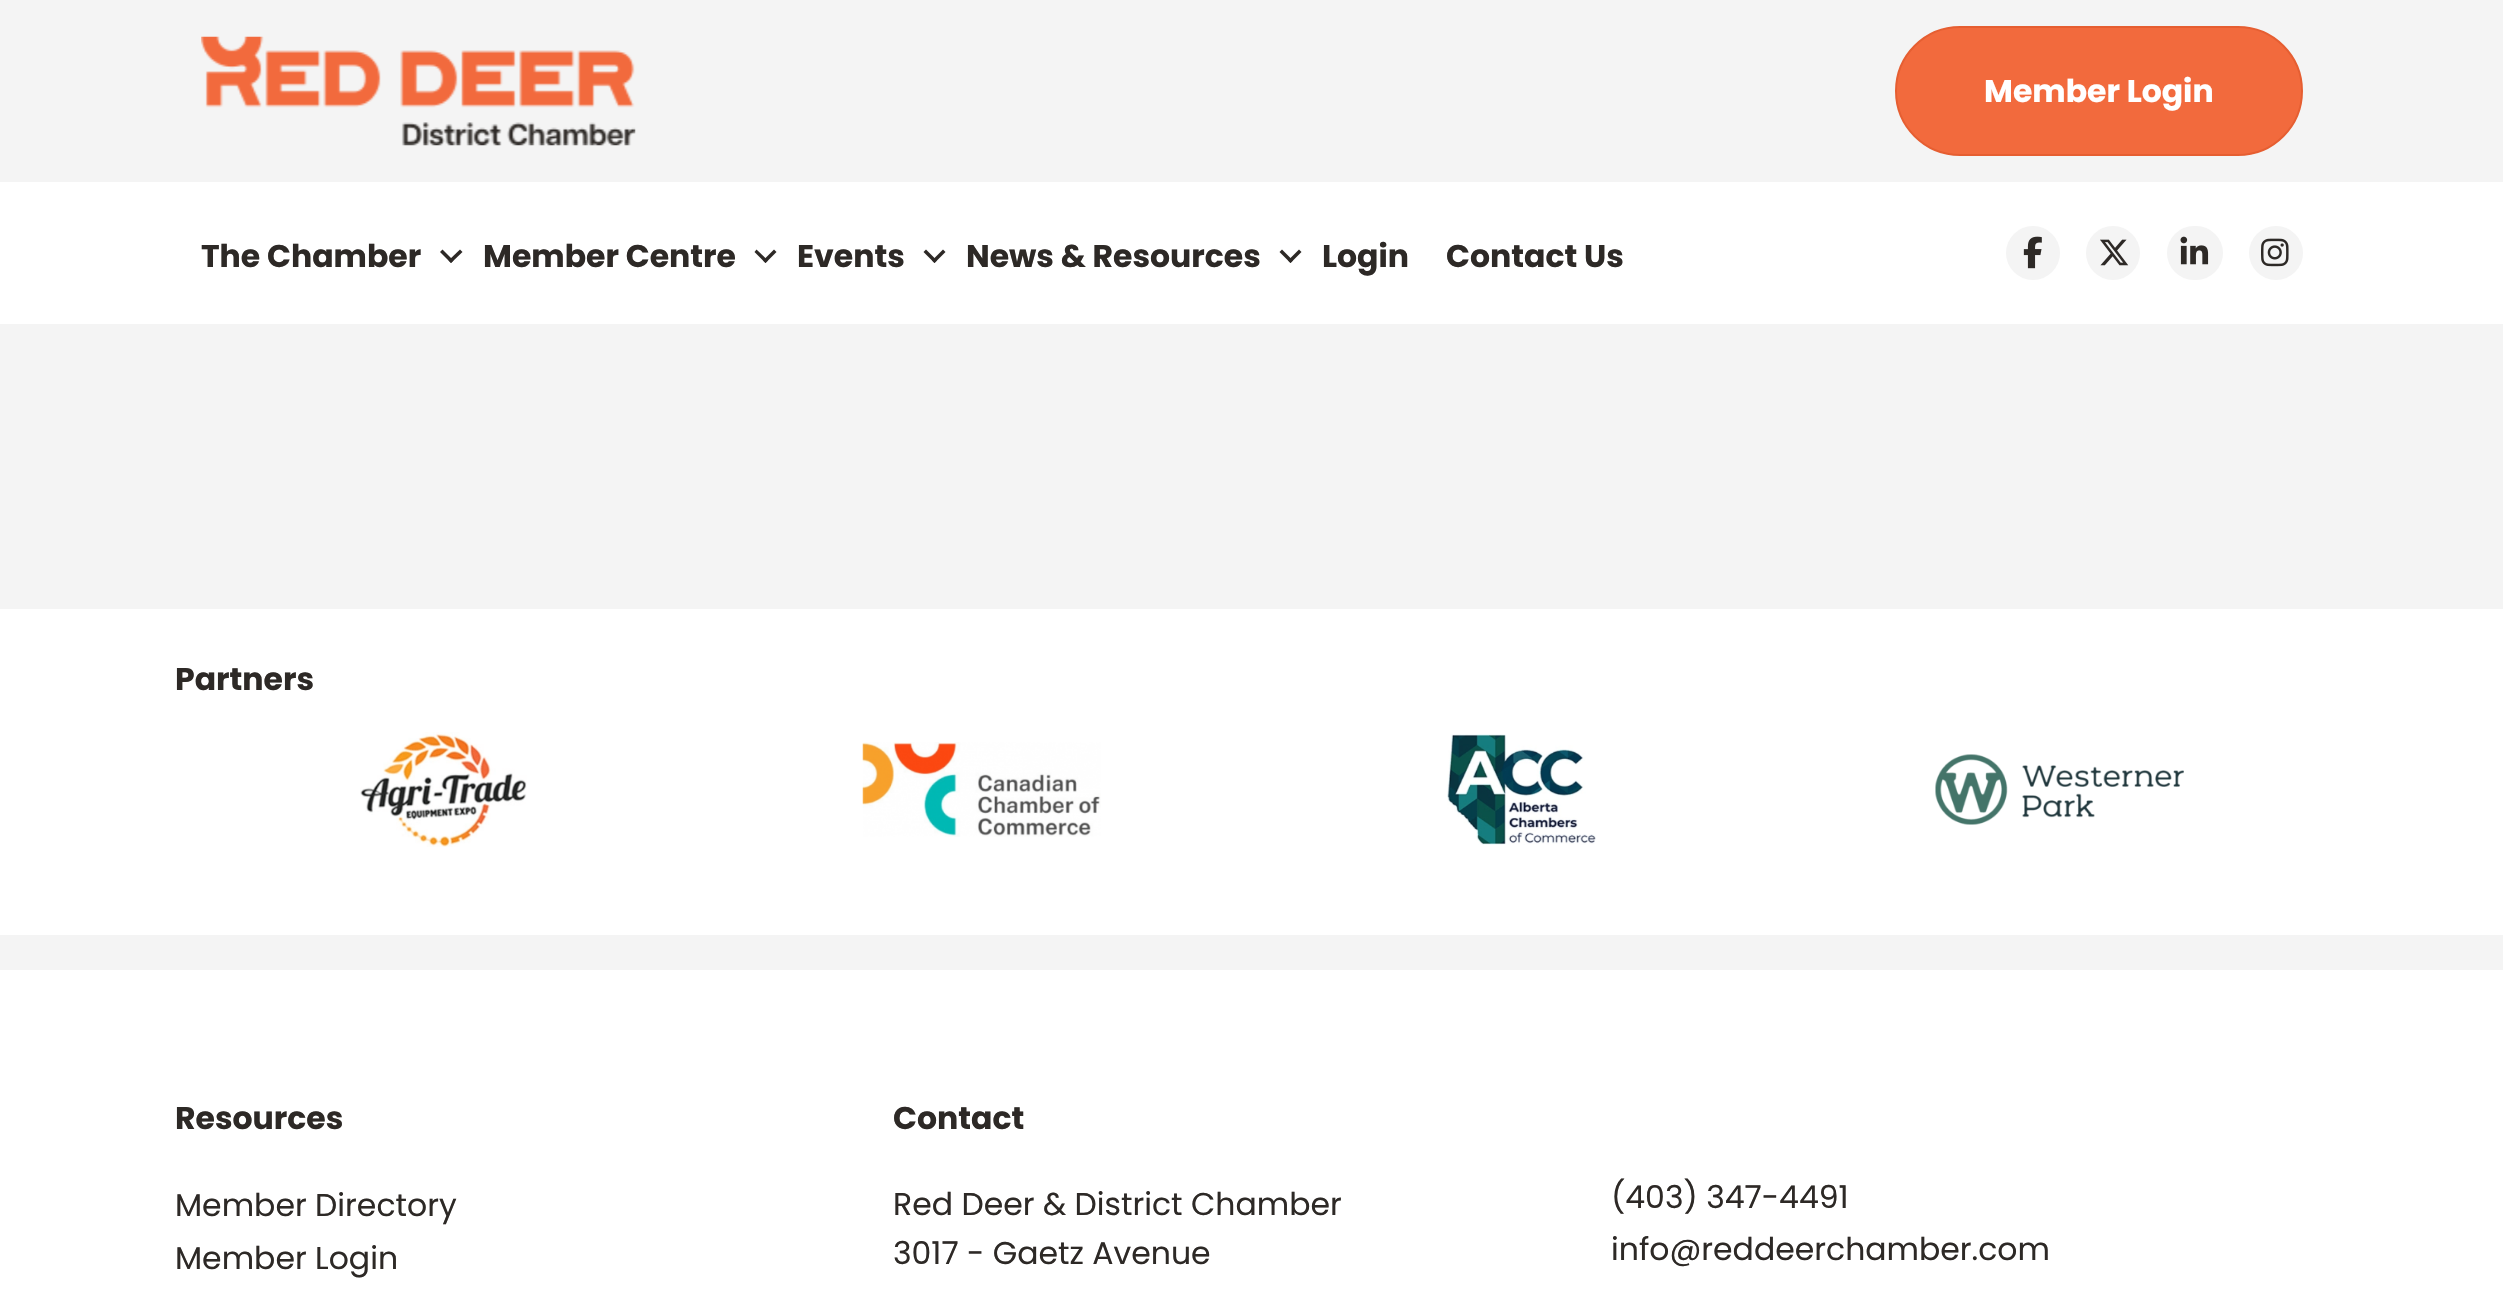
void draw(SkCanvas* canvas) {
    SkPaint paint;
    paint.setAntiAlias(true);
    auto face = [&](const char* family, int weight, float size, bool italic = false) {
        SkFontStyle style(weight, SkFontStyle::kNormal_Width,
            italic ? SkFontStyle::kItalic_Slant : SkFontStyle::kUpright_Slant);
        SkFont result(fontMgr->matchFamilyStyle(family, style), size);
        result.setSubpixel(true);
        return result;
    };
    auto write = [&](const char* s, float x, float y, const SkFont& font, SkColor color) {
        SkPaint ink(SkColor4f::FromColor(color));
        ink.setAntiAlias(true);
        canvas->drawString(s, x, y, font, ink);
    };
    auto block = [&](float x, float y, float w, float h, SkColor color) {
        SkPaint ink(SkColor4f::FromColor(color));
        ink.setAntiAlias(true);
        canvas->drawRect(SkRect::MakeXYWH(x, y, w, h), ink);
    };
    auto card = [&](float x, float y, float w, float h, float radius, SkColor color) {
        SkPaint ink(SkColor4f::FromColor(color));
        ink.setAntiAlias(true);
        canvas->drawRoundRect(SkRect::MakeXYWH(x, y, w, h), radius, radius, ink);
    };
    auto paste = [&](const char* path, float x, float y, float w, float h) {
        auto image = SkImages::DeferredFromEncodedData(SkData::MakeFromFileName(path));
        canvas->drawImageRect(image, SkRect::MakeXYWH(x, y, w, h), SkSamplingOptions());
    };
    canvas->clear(SkColorSetRGB(244, 244, 244));
    paste("pic1.png", 201, 36, 435, 110);
    paint.setColor(SkColorSetRGB(242, 106, 61));
    canvas->drawRoundRect(SkRect::MakeXYWH(1896, 27, 406, 128), 64, 64, paint);
    paint.setStyle(SkPaint::kStroke_Style);
    paint.setStrokeWidth(2);
    paint.setColor(SkColorSetRGB(230, 94, 49));
    canvas->drawRoundRect(SkRect::MakeXYWH(1896, 27, 406, 128), 64, 64, paint);
    auto kFont1 = face("Poppins", 700, 31.5f);
    write("Member Login", 1984, 102, kFont1, SK_ColorWHITE);
    block(0, 182, 2503, 142, SK_ColorWHITE);
    write("The Chamber", 201, 267, kFont1, SkColorSetRGB(45, 41, 38));
    paint.setStyle(SkPaint::kFill_Style);
    paint.setColor(SkColorSetRGB(45, 41, 38));
    canvas->drawPath(SkPathBuilder().moveTo(460, 249.5f).lineTo(462.5f, 252).lineTo(451, 263).lineTo(448.5f, 260.5f).close().detach(), paint);
    canvas->drawPath(SkPathBuilder().moveTo(442.5f, 249.5f).lineTo(453.5f, 260.5f).lineTo(451, 263).lineTo(440, 252).close().detach(), paint);
    write("Member Centre", 483, 267, kFont1, SkColorSetRGB(45, 41, 38));
    canvas->drawPath(SkPathBuilder().moveTo(774, 249.5f).lineTo(776.5f, 252).lineTo(765.5f, 263).lineTo(763, 260.5f).close().detach(), paint);
    canvas->drawPath(SkPathBuilder().moveTo(756.5f, 249.5f).lineTo(768, 260.5f).lineTo(765.5f, 263).lineTo(754.5f, 252).close().detach(), paint);
    write("Events", 797, 267, kFont1, SkColorSetRGB(45, 41, 38));
    canvas->drawPath(SkPathBuilder().moveTo(943, 249.5f).lineTo(945.5f, 252).lineTo(934.5f, 263).lineTo(932, 260.5f).close().detach(), paint);
    canvas->drawPath(SkPathBuilder().moveTo(926, 249.5f).lineTo(937, 260.5f).lineTo(934.5f, 263).lineTo(923.5f, 252).close().detach(), paint);
    write("News & Resources", 966, 267, kFont1, SkColorSetRGB(45, 41, 38));
    canvas->drawPath(SkPathBuilder().moveTo(1299, 249.5f).lineTo(1301.5f, 252).lineTo(1290.5f, 263).lineTo(1288, 260.5f).close().detach(), paint);
    canvas->drawPath(SkPathBuilder().moveTo(1282, 249.5f).lineTo(1293, 260.5f).lineTo(1290.5f, 263).lineTo(1279.5f, 252).close().detach(), paint);
    write("Login", 1322, 267, kFont1, SkColorSetRGB(45, 41, 38));
    write("Contact Us", 1446, 267, kFont1, SkColorSetRGB(45, 41, 38));
    paint.setColor(SkColorSetRGB(244, 244, 244));
    canvas->drawCircle(2033, 253, 27, paint);
    paste("pic2.png", 2023, 236, 19, 33);
    canvas->drawCircle(2113, 253, 27, paint);
    paste("pic3.png", 2100, 239, 29, 27);
    card(2167, 226, 56, 54, 27, SkColorSetRGB(244, 244, 244));
    paste("pic4.png", 2180, 236, 29, 29);
    canvas->drawCircle(2276, 253, 27, paint);
    paste("pic5.png", 2261, 238, 28, 29);
    block(0, 609, 2503, 326, SK_ColorWHITE);
    write("Partners", 175, 690, kFont1, SkColorSetRGB(45, 41, 38));
    paste("pic6.png", 360, 732, 167, 115);
    paste("pic7.png", 862, 742, 239, 95);
    paste("pic8.png", 1447, 734, 149, 111);
    paste("pic9.png", 1935, 754, 249, 71);
    block(0, 970, 2503, 329, SK_ColorWHITE);
    write("Resources", 175, 1129, kFont1, SkColorSetRGB(45, 41, 38));
    auto kFont2 = face("Poppins", 400, 31.5f);
    write("Member Directory", 175, 1216, kFont2, SkColorSetRGB(45, 41, 38));
    write("Member Login", 175, 1269, kFont2, SkColorSetRGB(45, 41, 38));
    write("Contact", 893, 1129, kFont1, SkColorSetRGB(45, 41, 38));
    write("Red Deer & District Chamber", 893, 1215, kFont2, SkColorSetRGB(45, 41, 38));
    write("3017 - Gaetz Avenue", 893, 1264, kFont2, SkColorSetRGB(45, 41, 38));
    write("(403) 347-4491", 1611, 1208, kFont2, SkColorSetRGB(45, 41, 38));
    write("info@reddeerchamber.com", 1611, 1260, kFont2, SkColorSetRGB(45, 41, 38));
}
